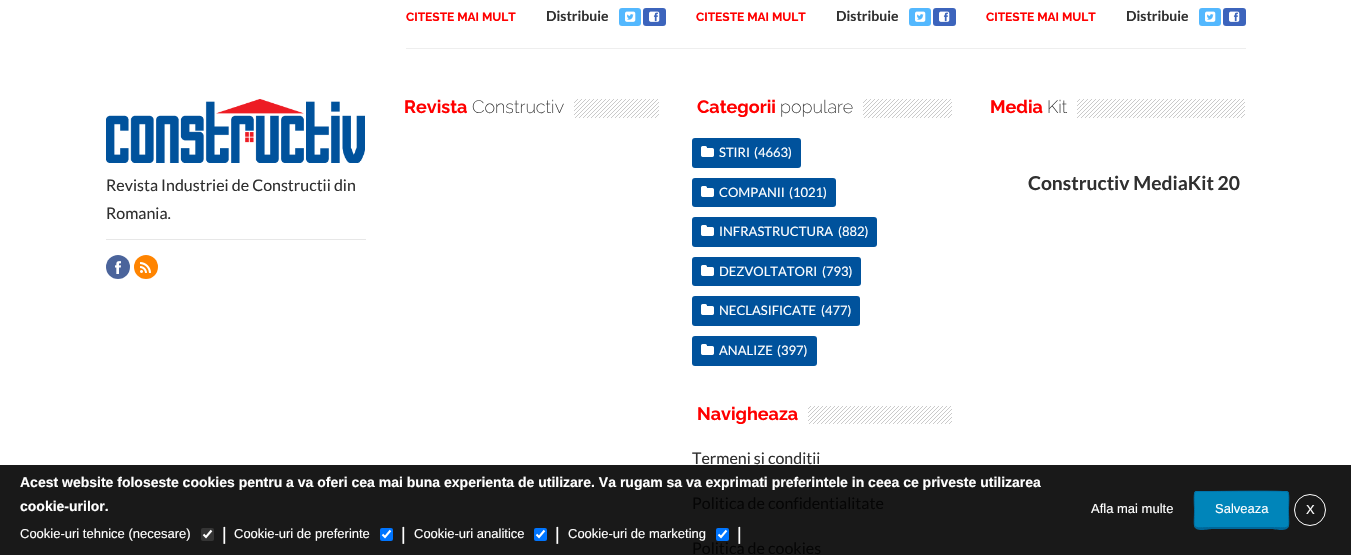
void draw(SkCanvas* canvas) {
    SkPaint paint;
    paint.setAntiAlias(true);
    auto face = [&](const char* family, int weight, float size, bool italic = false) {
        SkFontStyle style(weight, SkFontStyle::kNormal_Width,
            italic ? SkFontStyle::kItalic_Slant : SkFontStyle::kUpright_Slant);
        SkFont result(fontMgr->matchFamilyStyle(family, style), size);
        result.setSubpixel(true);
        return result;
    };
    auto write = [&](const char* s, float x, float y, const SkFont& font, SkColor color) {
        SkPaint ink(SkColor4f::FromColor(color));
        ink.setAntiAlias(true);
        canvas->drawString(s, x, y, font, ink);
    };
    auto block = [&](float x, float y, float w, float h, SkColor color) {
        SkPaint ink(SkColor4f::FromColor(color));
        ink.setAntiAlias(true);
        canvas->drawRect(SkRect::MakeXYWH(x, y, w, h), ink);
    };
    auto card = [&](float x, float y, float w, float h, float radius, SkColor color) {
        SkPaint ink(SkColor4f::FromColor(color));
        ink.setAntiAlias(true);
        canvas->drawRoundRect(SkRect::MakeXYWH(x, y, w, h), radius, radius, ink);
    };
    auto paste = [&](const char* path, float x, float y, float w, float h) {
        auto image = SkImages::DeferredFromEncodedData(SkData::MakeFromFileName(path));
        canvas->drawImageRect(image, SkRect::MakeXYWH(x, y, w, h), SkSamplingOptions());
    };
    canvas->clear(SK_ColorWHITE);
    block(0, 465, 1351, 90, SkColorSetRGB(25, 25, 25));
    block(406, 48, 840, 1, SkColorSetRGB(238, 238, 238));
    auto kFont1 = face("Raleway", 700, 12);
    write("CITESTE MAI MULT", 406, 21, kFont1, SkColorSetRGB(255, 0, 0));
    auto kFont2 = face("Lato", 700, 14);
    write("Distribuie", 546, 21, kFont2, SkColorSetRGB(48, 48, 48));
    card(619, 8, 22, 18, 3, SkColorSetRGB(83, 184, 254));
    paste("pic1.png", 625, 11, 11, 11);
    card(643, 8, 23, 18, 3, SkColorSetRGB(60, 100, 188));
    paste("pic2.png", 649, 11, 11, 11);
    write("CITESTE MAI MULT", 696, 21, kFont1, SkColorSetRGB(255, 0, 0));
    write("Distribuie", 836, 21, kFont2, SkColorSetRGB(48, 48, 48));
    card(909, 8, 22, 18, 3, SkColorSetRGB(83, 184, 254));
    paste("pic1.png", 915, 11, 11, 11);
    card(933, 8, 23, 18, 3, SkColorSetRGB(60, 100, 188));
    paste("pic2.png", 939, 11, 11, 11);
    write("CITESTE MAI MULT", 986, 21, kFont1, SkColorSetRGB(255, 0, 0));
    write("Distribuie", 1126, 21, kFont2, SkColorSetRGB(48, 48, 48));
    card(1199, 8, 22, 18, 3, SkColorSetRGB(83, 184, 254));
    paste("pic1.png", 1205, 11, 11, 11);
    card(1223, 8, 23, 18, 3, SkColorSetRGB(60, 100, 188));
    paste("pic2.png", 1229, 11, 11, 11);
    block(574, 99, 85, 19, SkColorSetRGB(202, 202, 202));
    paste("pic3.png", 574, 99, 85, 19);
    auto kFont3 = face("Raleway", 700, 18);
    write("Revista", 404, 113, kFont3, SkColorSetRGB(255, 0, 0));
    auto kFont4 = face("Raleway", 200, 18);
    write("Constructiv", 472, 113, kFont4, SkColorSetRGB(48, 48, 48));
    block(863, 99, 89, 19, SkColorSetRGB(202, 202, 202));
    paste("pic4.png", 863, 99, 89, 19);
    write("Categorii", 697, 113, kFont3, SkColorSetRGB(255, 0, 0));
    write("populare", 780, 113, kFont4, SkColorSetRGB(48, 48, 48));
    card(692, 138, 109, 30, 3, SkColorSetRGB(0, 82, 156));
    paste("pic5.png", 701, 146, 13, 11);
    auto kFont5 = face("Lato", 400, 13);
    write("STIRI", 719, 157, kFont5, SK_ColorWHITE);
    write("(4663)", 754, 157, kFont5, SK_ColorWHITE);
    card(692, 178, 144, 29, 3, SkColorSetRGB(0, 82, 156));
    paste("pic5.png", 701, 186, 13, 11);
    write("COMPANII", 719, 197, kFont5, SK_ColorWHITE);
    write("(1021)", 789, 197, kFont5, SK_ColorWHITE);
    card(692, 217, 185, 30, 3, SkColorSetRGB(0, 82, 156));
    paste("pic5.png", 701, 225, 13, 11);
    write("INFRASTRUCTURA", 719, 236, kFont5, SK_ColorWHITE);
    write("(882)", 838, 236, kFont5, SK_ColorWHITE);
    card(692, 257, 169, 29, 3, SkColorSetRGB(0, 82, 156));
    paste("pic5.png", 701, 265, 13, 11);
    write("DEZVOLTATORI", 719, 276, kFont5, SK_ColorWHITE);
    write("(793)", 822, 276, kFont5, SK_ColorWHITE);
    card(692, 296, 168, 30, 3, SkColorSetRGB(0, 82, 156));
    paste("pic5.png", 701, 304, 13, 11);
    write("NECLASIFICATE", 719, 315, kFont5, SK_ColorWHITE);
    write("(477)", 821, 315, kFont5, SK_ColorWHITE);
    card(692, 336, 125, 30, 3, SkColorSetRGB(0, 82, 156));
    paste("pic5.png", 701, 344, 13, 11);
    write("ANALIZE", 719, 355, kFont5, SK_ColorWHITE);
    write("(397)", 777, 355, kFont5, SK_ColorWHITE);
    block(808, 406, 144, 18, SkColorSetRGB(202, 202, 202));
    paste("pic6.png", 808, 406, 144, 18);
    write("Navigheaza", 697, 420, kFont3, SkColorSetRGB(255, 0, 0));
    auto kFont6 = face("Lato", 400, 16);
    write("Termeni si conditii", 692, 464, kFont6, SkColorSetRGB(48, 48, 48));
    write("Politica de confidentialitate", 692, 509, kFont6, SkColorSetRGB(5, 5, 5));
    write("Politica de cookies", 692, 554, kFont6, SkColorSetRGB(5, 5, 5));
    block(1077, 99, 168, 19, SkColorSetRGB(202, 202, 202));
    paste("pic7.png", 1077, 99, 168, 19);
    write("Media", 990, 113, kFont3, SkColorSetRGB(255, 0, 0));
    write("Kit", 1047, 113, kFont4, SkColorSetRGB(48, 48, 48));
    auto kFont7 = face("Lato", 700, 19.25f);
    write("Constructiv MediaKit 20", 1028, 190, kFont7, SkColorSetRGB(48, 48, 48));
    paste("pic8.png", 106, 99, 259, 64);
    block(106, 239, 260, 1, SkColorSetRGB(231, 231, 231));
    write("Revista Industriei de Constructii din", 106, 191, kFont6, SkColorSetRGB(48, 48, 48));
    write("Romania.", 106, 219, kFont6, SkColorSetRGB(48, 48, 48));
    paint.setColor(SkColorSetRGB(75, 100, 155));
    canvas->drawCircle(118, 267, 12, paint);
    paste("pic9.png", 115, 261, 6, 13);
    paint.setColor(SkColorSetRGB(255, 132, 0));
    canvas->drawCircle(146, 267, 12, paint);
    paste("pic10.png", 140, 262, 11, 11);
    auto kFont8 = face("Liberation Sans", 700, 14);
    write("Acest website foloseste cookies pentru a va oferi cea mai buna experienta de utilizare. Va rugam sa va exprimati preferintele in ceea ce priveste utilizarea", 20, 487, kFont8, SK_ColorWHITE);
    write("cookie-urilor.", 20, 511, kFont8, SK_ColorWHITE);
    auto kFont9 = face("Liberation Sans", 400, 13);
    write("Cookie-uri tehnice (necesare)", 20, 538, kFont9, SK_ColorWHITE);
    card(201, 528, 13, 13, 2, SkColorSetRGB(53, 53, 53));
    paint.setStyle(SkPaint::kStroke_Style);
    paint.setStrokeWidth(2.1f);
    paint.setColor(SK_ColorWHITE);
    canvas->drawPath(SkPathBuilder().moveTo(203.5f, 534.5f).lineTo(206, 537).lineTo(211.5f, 530.5f).detach(), paint);
    auto kFont10 = face("Liberation Sans", 400, 18);
    write("|", 222, 540, kFont10, SK_ColorWHITE);
    write("Cookie-uri de preferinte", 234, 538, kFont9, SK_ColorWHITE);
    card(380, 528, 13, 13, 2, SkColorSetRGB(0, 117, 255));
    canvas->drawPath(SkPathBuilder().moveTo(382.5f, 534.5f).lineTo(385, 537).lineTo(390.5f, 530.5f).detach(), paint);
    write("|", 401, 540, kFont10, SK_ColorWHITE);
    write("Cookie-uri analitice", 414, 538, kFont9, SK_ColorWHITE);
    card(534, 528, 13, 13, 2, SkColorSetRGB(0, 117, 255));
    canvas->drawPath(SkPathBuilder().moveTo(536.5f, 534.5f).lineTo(539, 537).lineTo(544.5f, 530.5f).detach(), paint);
    write("|", 555, 540, kFont10, SK_ColorWHITE);
    write("Cookie-uri de marketing", 568, 538, kFont9, SK_ColorWHITE);
    card(716, 528, 13, 13, 2, SkColorSetRGB(0, 117, 255));
    canvas->drawPath(SkPathBuilder().moveTo(718.5f, 534.5f).lineTo(721, 537).lineTo(726.5f, 530.5f).detach(), paint);
    write("|", 737, 540, kFont10, SK_ColorWHITE);
    write("Afla mai multe", 1091, 513, kFont9, SK_ColorWHITE);
    paint.setStyle(SkPaint::kFill_Style);
    paint.setColor(SkColorSetRGB(0, 103, 153));
    canvas->drawPath(SkPathBuilder().moveTo(1194, 525).cubicTo(1194, 533, 1209, 529, 1212, 529).lineTo(1271, 529).cubicTo(1274, 529, 1289, 533, 1289, 525).cubicTo(1289, 527, 1288, 528, 1286, 528).lineTo(1197, 528).cubicTo(1195, 528, 1194, 527, 1194, 525).close().detach(), paint);
    card(1194, 491, 95, 37, 3, SkColorSetRGB(0, 133, 186));
    paint.setStyle(SkPaint::kStroke_Style);
    paint.setStrokeWidth(1);
    paint.setColor(SkColorSetRGB(0, 115, 170));
    canvas->drawPath(SkPathBuilder().moveTo(1195, 492).lineTo(1197, 491.5f).lineTo(1212, 491.5f).cubicTo(1219.5f, 491.5f, 1285.5f, 490.5f, 1287.5f, 492).lineTo(1288, 492).detach(), paint);
    paint.setColor(SkColorSetRGB(0, 103, 153));
    canvas->drawPath(SkPathBuilder().moveTo(1288, 492).cubicTo(1289.5f, 494, 1288.5f, 506.5f, 1288.5f, 509.5f).cubicTo(1288.5f, 531, 1292.5f, 527.5f, 1271, 527.5f).lineTo(1212, 527.5f).cubicTo(1190.5f, 527.5f, 1194.5f, 531, 1194.5f, 509.5f).cubicTo(1194.5f, 506.5f, 1193.5f, 494, 1195, 492).detach(), paint);
    write("Salveaza", 1215, 513, kFont9, SK_ColorWHITE);
    paint.setColor(SK_ColorWHITE);
    canvas->drawCircle(1310, 510, 15.5f, paint);
    write("X", 1306, 514, kFont9, SK_ColorWHITE);
}
